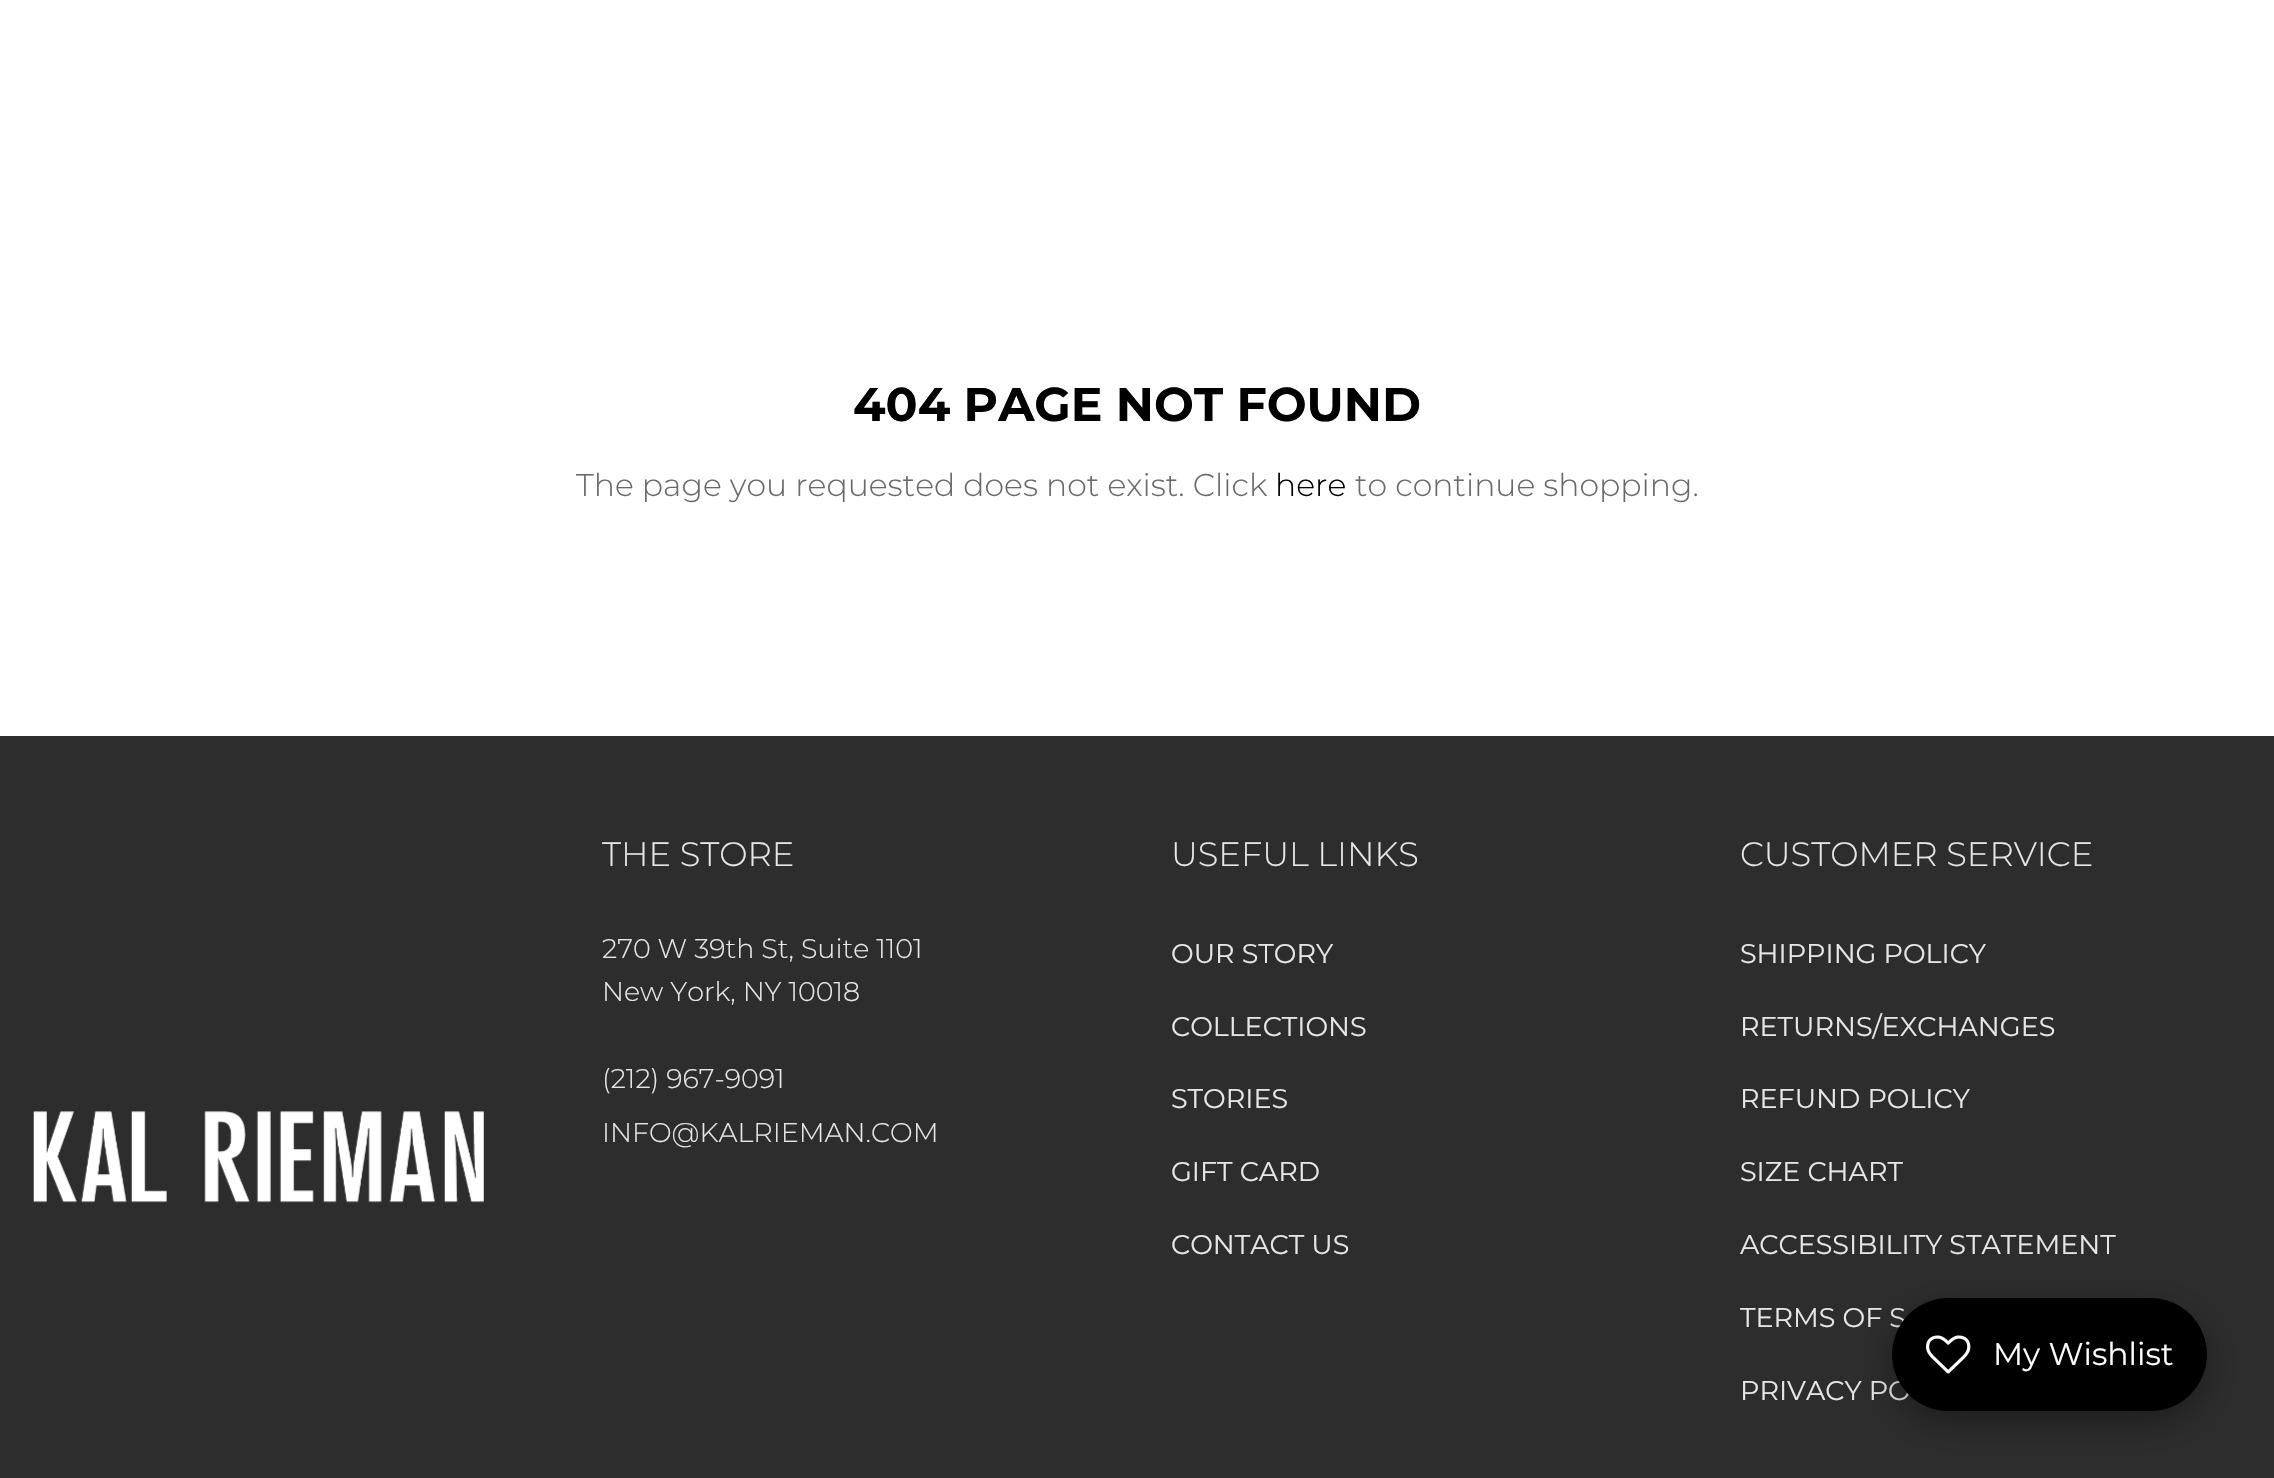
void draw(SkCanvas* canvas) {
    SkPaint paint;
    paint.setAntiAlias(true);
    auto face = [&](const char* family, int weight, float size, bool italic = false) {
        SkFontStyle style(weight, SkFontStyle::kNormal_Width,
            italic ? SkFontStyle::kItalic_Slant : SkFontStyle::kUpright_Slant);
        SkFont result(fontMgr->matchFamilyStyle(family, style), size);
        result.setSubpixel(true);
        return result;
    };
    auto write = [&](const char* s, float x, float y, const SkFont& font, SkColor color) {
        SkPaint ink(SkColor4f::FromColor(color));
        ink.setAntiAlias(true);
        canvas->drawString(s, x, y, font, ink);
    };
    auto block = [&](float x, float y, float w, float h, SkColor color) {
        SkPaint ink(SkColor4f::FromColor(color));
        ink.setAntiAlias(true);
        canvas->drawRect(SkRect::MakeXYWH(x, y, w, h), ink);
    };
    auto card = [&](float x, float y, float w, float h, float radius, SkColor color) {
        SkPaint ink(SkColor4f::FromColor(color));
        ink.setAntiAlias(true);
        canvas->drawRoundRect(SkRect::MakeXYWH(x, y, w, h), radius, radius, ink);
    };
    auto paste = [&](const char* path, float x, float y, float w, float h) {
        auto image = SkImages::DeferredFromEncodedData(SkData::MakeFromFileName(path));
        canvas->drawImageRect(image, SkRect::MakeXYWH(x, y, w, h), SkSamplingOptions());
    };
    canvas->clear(SK_ColorWHITE);
    auto kFont1 = face("Montserrat", 700, 47.25f);
    write("404 PAGE NOT FOUND", 853, 421, kFont1, SK_ColorBLACK);
    auto kFont2 = face("Montserrat", 300, 31.5f);
    write("The page you requested does not exist. Click", 576, 496, kFont2, SkColorSetRGB(105, 105, 105));
    write("here", 1275, 496, kFont2, SK_ColorBLACK);
    write("to continue shopping.", 1355, 496, kFont2, SkColorSetRGB(105, 105, 105));
    block(0, 736, 2274, 742, SkColorSetRGB(45, 45, 45));
    paste("pic1.png", 33, 1111, 451, 92);
    auto kFont3 = face("Montserrat", 300, 33.75f);
    write("THE STORE", 602, 866, kFont3, SkColorSetRGB(230, 230, 230));
    auto kFont4 = face("Montserrat", 300, 27);
    write("270 W 39th St, Suite 1101", 602, 958, kFont4, SkColorSetRGB(230, 230, 230));
    write("New York, NY 10018", 602, 1001, kFont4, SkColorSetRGB(230, 230, 230));
    write("(212) 967-9091", 602, 1088, kFont4, SkColorSetRGB(230, 230, 230));
    write("INFO@KALRIEMAN.COM", 602, 1142, kFont4, SkColorSetRGB(230, 230, 230));
    write("USEFUL LINKS", 1171, 866, kFont3, SkColorSetRGB(230, 230, 230));
    auto kFont5 = face("Montserrat", 400, 27);
    write("OUR STORY", 1171, 963, kFont5, SkColorSetRGB(230, 230, 230));
    write("COLLECTIONS", 1171, 1036, kFont5, SkColorSetRGB(230, 230, 230));
    write("STORIES", 1171, 1108, kFont5, SkColorSetRGB(230, 230, 230));
    write("GIFT CARD", 1171, 1181, kFont5, SkColorSetRGB(230, 230, 230));
    write("CONTACT US", 1171, 1254, kFont5, SkColorSetRGB(230, 230, 230));
    write("CUSTOMER SERVICE", 1740, 866, kFont3, SkColorSetRGB(230, 230, 230));
    write("SHIPPING POLICY", 1740, 963, kFont5, SkColorSetRGB(230, 230, 230));
    write("RETURNS/EXCHANGES", 1740, 1036, kFont5, SkColorSetRGB(230, 230, 230));
    write("REFUND POLICY", 1740, 1108, kFont5, SkColorSetRGB(230, 230, 230));
    write("SIZE CHART", 1740, 1181, kFont5, SkColorSetRGB(230, 230, 230));
    write("ACCESSIBILITY STATEMENT", 1740, 1254, kFont5, SkColorSetRGB(230, 230, 230));
    write("TERMS OF S", 1740, 1327, kFont5, SkColorSetRGB(230, 230, 230));
    write("PRIVACY PO", 1740, 1400, kFont5, SkColorSetRGB(230, 230, 230));
    paint.setColor(SkColorSetARGB(89, 0, 0, 0));
    paint.setMaskFilter(SkMaskFilter::MakeBlur(kNormal_SkBlurStyle, 17));
    canvas->drawRoundRect(SkRect::MakeXYWH(1892, 1310, 315, 112), 56, 56, paint);
    paint.setMaskFilter(nullptr);
    card(1892, 1298, 315, 113, 56.5f, SK_ColorBLACK);
    paste("pic2.png", 1926, 1335, 45, 39);
    auto kFont6 = face("Montserrat", 400, 31.5f);
    write("My Wishlist", 1993, 1365, kFont6, SK_ColorWHITE);
}
